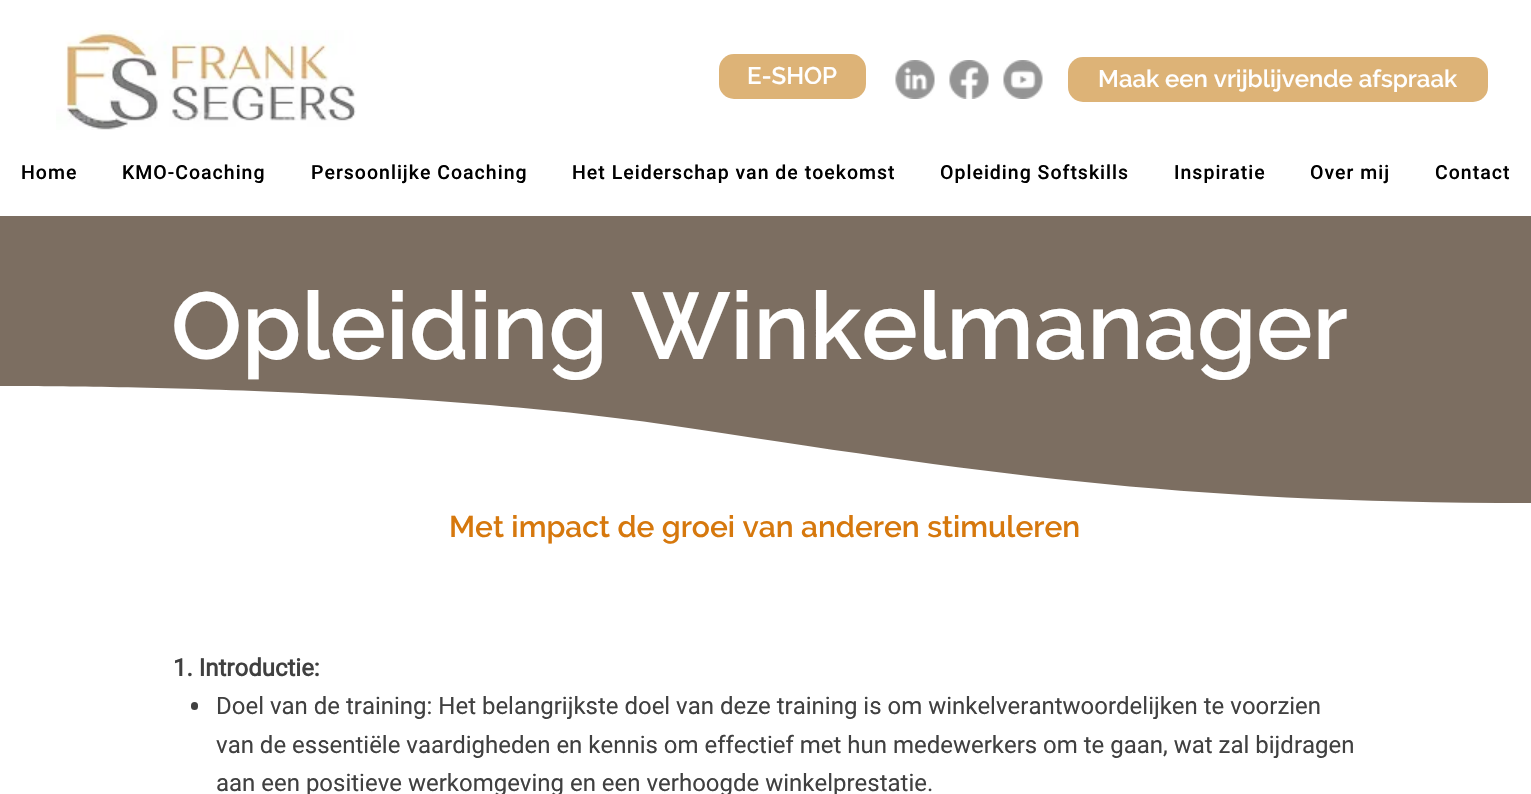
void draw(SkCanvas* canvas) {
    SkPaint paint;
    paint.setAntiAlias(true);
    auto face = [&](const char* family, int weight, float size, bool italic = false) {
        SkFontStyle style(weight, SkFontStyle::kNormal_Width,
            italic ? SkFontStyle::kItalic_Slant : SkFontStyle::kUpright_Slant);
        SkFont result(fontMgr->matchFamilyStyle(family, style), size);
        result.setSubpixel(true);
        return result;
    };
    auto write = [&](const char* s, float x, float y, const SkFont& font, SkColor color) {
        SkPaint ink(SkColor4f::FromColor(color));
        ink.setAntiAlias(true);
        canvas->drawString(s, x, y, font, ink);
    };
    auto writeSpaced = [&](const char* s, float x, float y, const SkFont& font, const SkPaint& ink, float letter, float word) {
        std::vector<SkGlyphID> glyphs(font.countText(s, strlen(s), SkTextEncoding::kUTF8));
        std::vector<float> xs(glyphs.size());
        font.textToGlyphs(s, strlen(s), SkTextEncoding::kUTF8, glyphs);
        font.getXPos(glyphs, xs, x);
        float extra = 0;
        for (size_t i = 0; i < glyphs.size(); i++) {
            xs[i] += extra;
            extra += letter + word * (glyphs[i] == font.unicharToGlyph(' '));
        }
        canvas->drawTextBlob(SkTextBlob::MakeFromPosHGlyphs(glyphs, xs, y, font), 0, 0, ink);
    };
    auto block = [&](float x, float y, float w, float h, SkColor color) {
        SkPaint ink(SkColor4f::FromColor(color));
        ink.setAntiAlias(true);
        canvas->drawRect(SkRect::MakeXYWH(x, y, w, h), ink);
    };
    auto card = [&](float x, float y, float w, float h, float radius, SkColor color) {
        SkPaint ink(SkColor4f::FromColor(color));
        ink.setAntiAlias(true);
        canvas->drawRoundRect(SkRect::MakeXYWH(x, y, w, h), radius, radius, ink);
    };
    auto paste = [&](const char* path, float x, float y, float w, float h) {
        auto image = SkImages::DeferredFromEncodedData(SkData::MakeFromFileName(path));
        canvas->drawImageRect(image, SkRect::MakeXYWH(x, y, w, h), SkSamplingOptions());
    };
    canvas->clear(SK_ColorWHITE);
    paste("pic1.png", 56, 30, 300, 100);
    card(719, 54, 147, 45, 15, SkColorSetRGB(221, 179, 119));
    auto kFont1 = face("Raleway", 600, 24);
    write("E-SHOP", 747, 84, kFont1, SK_ColorWHITE);
    paste("pic2.png", 895, 60, 40, 39);
    paste("pic3.png", 949, 60, 40, 39);
    paste("pic4.png", 1003, 60, 40, 39);
    card(1068, 57, 420, 45, 15, SkColorSetRGB(221, 179, 119));
    write("Maak een vrijblijvende afspraak", 1098, 87, kFont1, SK_ColorWHITE);
    auto kFont2 = face("Roboto", 500, 19.5f);
    paint.setColor(SK_ColorBLACK);
    writeSpaced("Home", 21, 179, kFont2, paint, 1, 0);
    writeSpaced("KMO-Coaching", 122, 179, kFont2, paint, 1, 0);
    writeSpaced("Persoonlijke Coaching", 311, 179, kFont2, paint, 1, 0);
    writeSpaced("Het Leiderschap van de toekomst", 572, 179, kFont2, paint, 1, 0);
    writeSpaced("Opleiding Softskills", 940, 179, kFont2, paint, 1, 0);
    writeSpaced("Inspiratie", 1174, 179, kFont2, paint, 1, 0);
    writeSpaced("Over mij", 1310, 179, kFont2, paint, 1, 0);
    writeSpaced("Contact", 1435, 179, kFont2, paint, 1, 0);
    block(0, 216, 1531, 287, SkColorSetRGB(124, 110, 97));
    auto kFont3 = face("Raleway", 600, 94.5f);
    write("Opleiding Winkelmanager", 171, 359, kFont3, SK_ColorWHITE);
    paint.setColor(SK_ColorWHITE);
    canvas->drawPath(SkPathBuilder().moveTo(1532, 506).lineTo(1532, 503).cubicTo(1168, 503, 980, 472, 668, 425).cubicTo(391, 384, 0, 386, 0, 386).lineTo(0, 506).close().detach(), paint);
    auto kFont4 = face("Raleway", 600, 30);
    write("Met impact de groei van anderen stimuleren", 449, 537, kFont4, SkColorSetRGB(214, 120, 13));
    auto kFont5 = face("Roboto", 700, 24);
    write("1. Introductie:", 173, 676, kFont5, SkColorSetRGB(64, 64, 64));
    card(191, 702, 7, 8, 3.5f, SkColorSetRGB(64, 64, 64));
    auto kFont6 = face("Roboto", 400, 24);
    write("Doel van de training: Het belangrijkste doel van deze training is om winkelverantwoordelijken te voorzien", 216, 714, kFont6, SkColorSetRGB(64, 64, 64));
    write("van de essentiële vaardigheden en kennis om effectief met hun medewerkers om te gaan, wat zal bijdragen", 216, 753, kFont6, SkColorSetRGB(64, 64, 64));
    write("aan een positieve werkomgeving en een verhoogde winkelprestatie.", 216, 791, kFont6, SkColorSetRGB(64, 64, 64));
}
